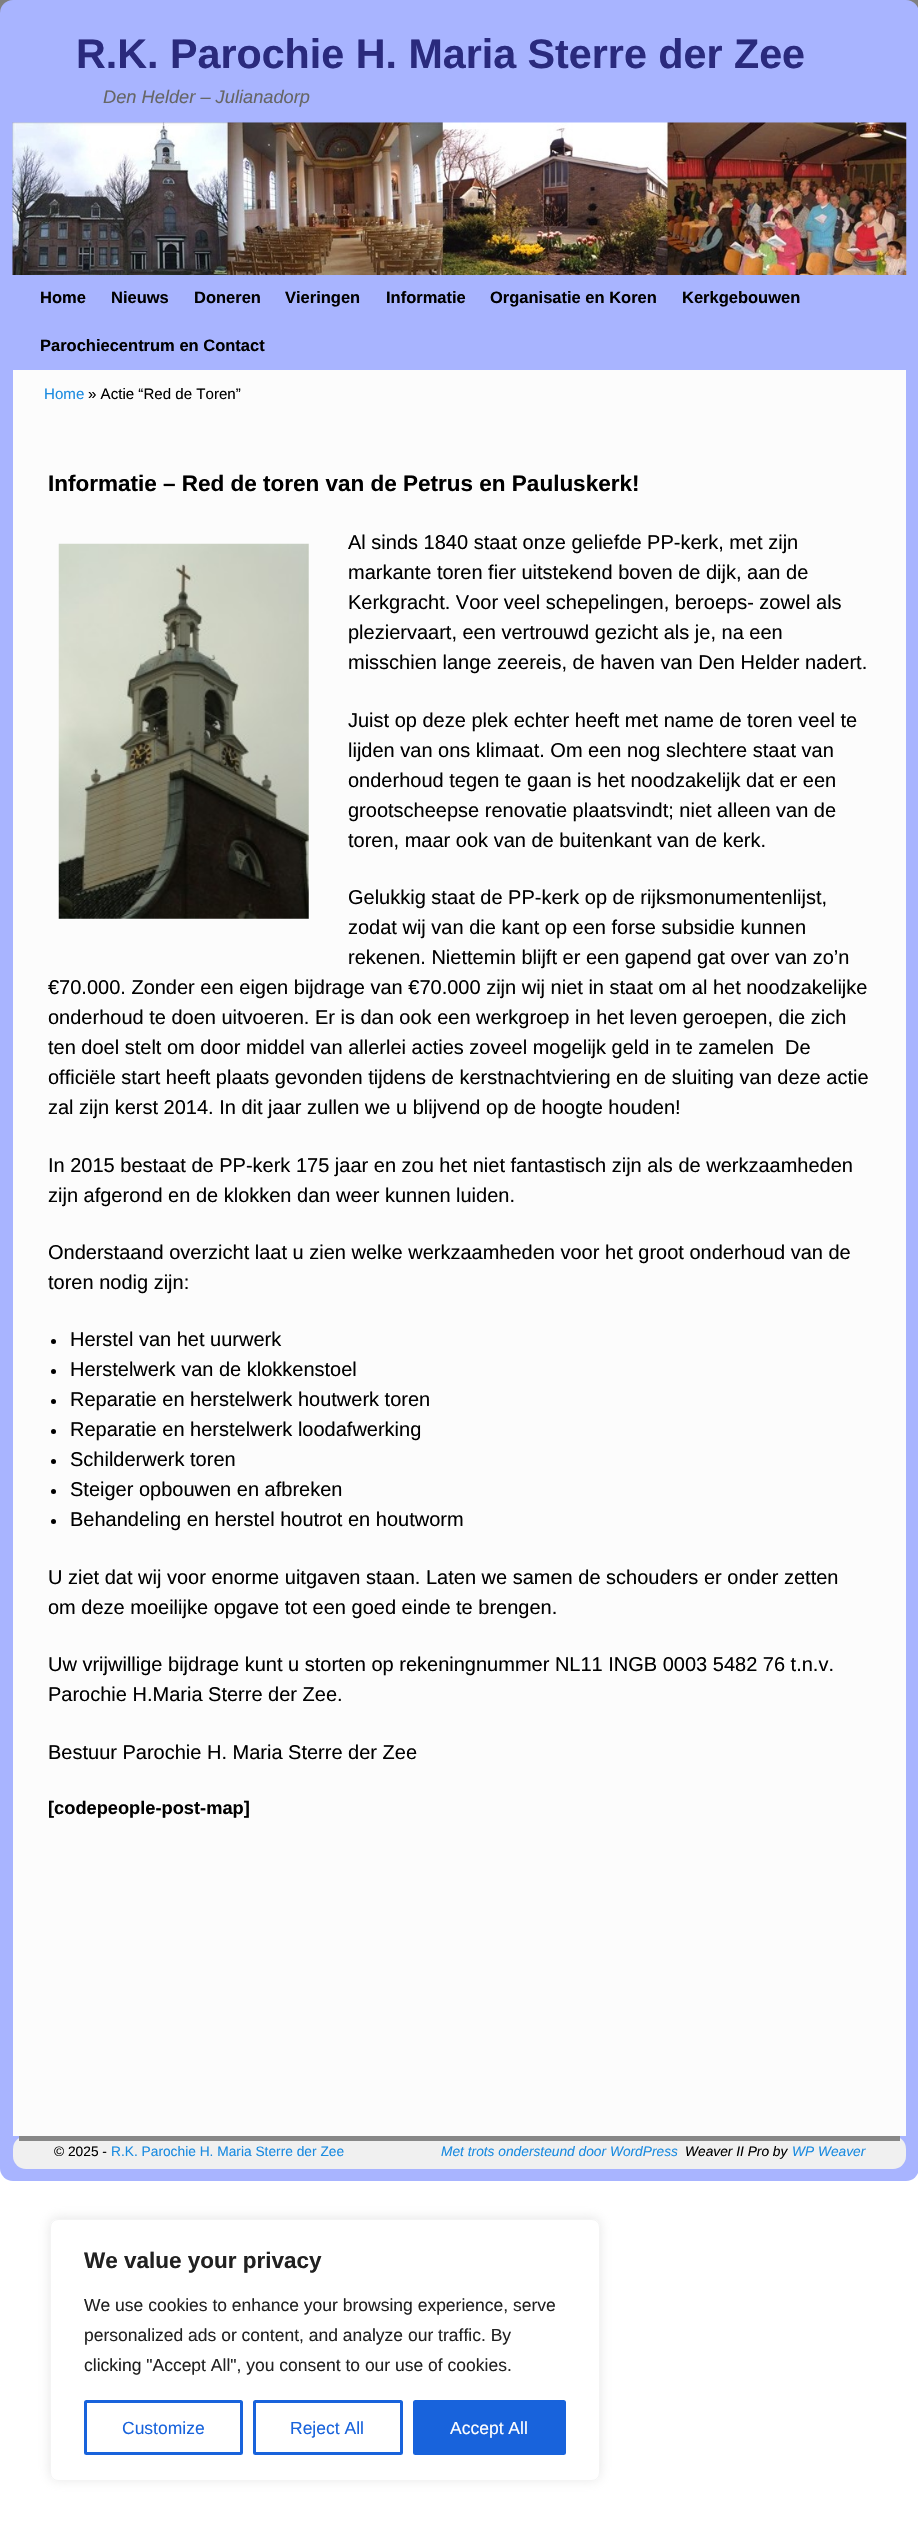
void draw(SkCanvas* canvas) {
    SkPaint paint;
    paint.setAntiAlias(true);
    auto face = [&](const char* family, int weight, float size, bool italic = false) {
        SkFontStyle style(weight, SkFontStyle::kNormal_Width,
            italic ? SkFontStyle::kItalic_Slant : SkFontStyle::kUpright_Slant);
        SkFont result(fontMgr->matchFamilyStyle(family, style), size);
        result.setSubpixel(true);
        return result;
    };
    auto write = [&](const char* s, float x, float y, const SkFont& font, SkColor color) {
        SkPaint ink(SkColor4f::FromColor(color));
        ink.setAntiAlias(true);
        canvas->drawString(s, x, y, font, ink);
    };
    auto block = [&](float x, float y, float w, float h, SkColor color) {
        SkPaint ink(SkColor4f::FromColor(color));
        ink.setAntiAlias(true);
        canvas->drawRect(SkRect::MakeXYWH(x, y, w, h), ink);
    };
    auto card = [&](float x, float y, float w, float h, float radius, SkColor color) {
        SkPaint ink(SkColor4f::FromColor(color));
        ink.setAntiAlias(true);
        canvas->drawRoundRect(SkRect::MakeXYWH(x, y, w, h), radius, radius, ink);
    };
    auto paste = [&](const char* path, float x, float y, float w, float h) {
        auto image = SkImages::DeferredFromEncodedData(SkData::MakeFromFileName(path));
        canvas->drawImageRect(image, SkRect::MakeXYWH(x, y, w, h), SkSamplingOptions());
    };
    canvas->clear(SK_ColorWHITE);
    paste("pic1.png", 0, 0, 918, 13);
    card(0, 0, 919, 2181, 13, SkColorSetRGB(168, 180, 255));
    auto kFont1 = face("Liberation Sans", 700, 41.25f);
    write("R.K. Parochie H. Maria Sterre der Zee", 76, 68, kFont1, SkColorSetRGB(42, 42, 125));
    auto kFont2 = face("Liberation Sans", 400, 18.25f, true);
    write("Den Helder – Julianadorp", 103, 103, kFont2, SkColorSetRGB(102, 102, 102));
    paste("pic2.png", 12, 122, 895, 153);
    auto kFont3 = face("Liberation Sans", 700, 16.5f);
    write("Home", 40, 303, kFont3, SK_ColorBLACK);
    write("Nieuws", 111, 303, kFont3, SK_ColorBLACK);
    write("Doneren", 194, 303, kFont3, SK_ColorBLACK);
    write("Vieringen", 285, 303, kFont3, SK_ColorBLACK);
    write("Informatie", 386, 303, kFont3, SK_ColorBLACK);
    write("Organisatie en Koren", 490, 303, kFont3, SK_ColorBLACK);
    write("Kerkgebouwen", 682, 303, kFont3, SK_ColorBLACK);
    write("Parochiecentrum en Contact", 40, 351, kFont3, SK_ColorBLACK);
    block(13, 370, 893, 1766, SkColorSetRGB(252, 252, 252));
    auto kFont4 = face("Liberation Sans", 400, 15.1f);
    write("Home", 44, 399, kFont4, SkColorSetRGB(27, 139, 224));
    write("» Actie “Red de Toren”", 88, 399, kFont4, SK_ColorBLACK);
    auto kFont5 = face("Liberation Sans", 700, 22.5f);
    write("Informatie – Red de toren van de Petrus en Pauluskerk!", 48, 491, kFont5, SK_ColorBLACK);
    paste("pic3.png", 58, 543, 251, 376);
    auto kFont6 = face("Liberation Sans", 400, 20);
    write("Al sinds 1840 staat onze geliefde PP-kerk, met zijn", 348, 549, kFont6, SK_ColorBLACK);
    write("markante toren fier uitstekend boven de dijk, aan de", 348, 579, kFont6, SK_ColorBLACK);
    write("Kerkgracht. Voor veel schepelingen, beroeps- zowel als", 348, 609, kFont6, SK_ColorBLACK);
    write("pleziervaart, een vertrouwd gezicht als je, na een", 348, 639, kFont6, SK_ColorBLACK);
    write("misschien lange zeereis, de haven van Den Helder nadert.", 348, 669, kFont6, SK_ColorBLACK);
    write("Juist op deze plek echter heeft met name de toren veel te", 348, 727, kFont6, SK_ColorBLACK);
    write("lijden van ons klimaat. Om een nog slechtere staat van", 348, 757, kFont6, SK_ColorBLACK);
    write("onderhoud tegen te gaan is het noodzakelijk dat er een", 348, 787, kFont6, SK_ColorBLACK);
    write("grootscheepse renovatie plaatsvindt; niet alleen van de", 348, 817, kFont6, SK_ColorBLACK);
    write("toren, maar ook van de buitenkant van de kerk.", 348, 847, kFont6, SK_ColorBLACK);
    write("Gelukkig staat de PP-kerk op de rijksmonumentenlijst,", 348, 904, kFont6, SK_ColorBLACK);
    write("zodat wij van die kant op een forse subsidie kunnen", 348, 934, kFont6, SK_ColorBLACK);
    write("rekenen. Niettemin blijft er een gapend gat over van zo’n", 348, 964, kFont6, SK_ColorBLACK);
    write("€70.000. Zonder een eigen bijdrage van €70.000 zijn wij niet in staat om al het noodzakelijke", 48, 994, kFont6, SK_ColorBLACK);
    write("onderhoud te doen uitvoeren. Er is dan ook een werkgroep in het leven geroepen, die zich", 48, 1024, kFont6, SK_ColorBLACK);
    write("ten doel stelt om door middel van allerlei acties zoveel mogelijk geld in te zamelen  De", 48, 1054, kFont6, SK_ColorBLACK);
    write("officiële start heeft plaats gevonden tijdens de kerstnachtviering en de sluiting van deze actie", 48, 1084, kFont6, SK_ColorBLACK);
    write("zal zijn kerst 2014. In dit jaar zullen we u blijvend op de hoogte houden!", 48, 1114, kFont6, SK_ColorBLACK);
    write("In 2015 bestaat de PP-kerk 175 jaar en zou het niet fantastisch zijn als de werkzaamheden", 48, 1172, kFont6, SK_ColorBLACK);
    write("zijn afgerond en de klokken dan weer kunnen luiden.", 48, 1202, kFont6, SK_ColorBLACK);
    write("Onderstaand overzicht laat u zien welke werkzaamheden voor het groot onderhoud van de", 48, 1259, kFont6, SK_ColorBLACK);
    write("toren nodig zijn:", 48, 1289, kFont6, SK_ColorBLACK);
    paint.setColor(SK_ColorBLACK);
    canvas->drawCircle(53.5f, 1341.5f, 2.5f, paint);
    write("Herstel van het uurwerk", 70, 1346, kFont6, SK_ColorBLACK);
    canvas->drawCircle(53.5f, 1371.5f, 2.5f, paint);
    write("Herstelwerk van de klokkenstoel", 70, 1376, kFont6, SK_ColorBLACK);
    canvas->drawCircle(53.5f, 1401.5f, 2.5f, paint);
    write("Reparatie en herstelwerk houtwerk toren", 70, 1406, kFont6, SK_ColorBLACK);
    canvas->drawCircle(53.5f, 1431.5f, 2.5f, paint);
    write("Reparatie en herstelwerk loodafwerking", 70, 1436, kFont6, SK_ColorBLACK);
    canvas->drawCircle(53.5f, 1461.5f, 2.5f, paint);
    write("Schilderwerk toren", 70, 1466, kFont6, SK_ColorBLACK);
    canvas->drawCircle(53.5f, 1491.5f, 2.5f, paint);
    write("Steiger opbouwen en afbreken", 70, 1496, kFont6, SK_ColorBLACK);
    canvas->drawCircle(53.5f, 1521.5f, 2.5f, paint);
    write("Behandeling en herstel houtrot en houtworm", 70, 1526, kFont6, SK_ColorBLACK);
    write("U ziet dat wij voor enorme uitgaven staan. Laten we samen de schouders er onder zetten", 48, 1584, kFont6, SK_ColorBLACK);
    write("om deze moeilijke opgave tot een goed einde te brengen.", 48, 1614, kFont6, SK_ColorBLACK);
    write("Uw vrijwillige bijdrage kunt u storten op rekeningnummer NL11 INGB 0003 5482 76 t.n.v.", 48, 1671, kFont6, SK_ColorBLACK);
    write("Parochie H.Maria Sterre der Zee.", 48, 1701, kFont6, SK_ColorBLACK);
    write("Bestuur Parochie H. Maria Sterre der Zee", 48, 1759, kFont6, SK_ColorBLACK);
    auto kFont7 = face("Liberation Sans", 700, 18.25f);
    write("[codepeople-post-map]", 48, 1814, kFont7, SK_ColorBLACK);
    card(13, 2136, 893, 33, 13, SkColorSetRGB(240, 240, 240));
    block(19, 2136, 881, 5, SkColorSetRGB(136, 136, 136));
    auto kFont8 = face("Liberation Sans", 400, 13.75f);
    write("© 2025 -", 54, 2156, kFont8, SK_ColorBLACK);
    write("R.K. Parochie H. Maria Sterre der Zee", 111, 2156, kFont8, SkColorSetRGB(27, 139, 224));
    auto kFont9 = face("Liberation Sans", 400, 13.75f, true);
    write("Met trots ondersteund door WordPress", 441, 2156, kFont9, SkColorSetRGB(27, 139, 224));
    write("Weaver II Pro by", 685, 2156, kFont9, SK_ColorBLACK);
    write("WP Weaver", 792, 2156, kFont9, SkColorSetRGB(27, 139, 224));
    canvas->save();
    canvas->clipPath(SkPathBuilder(SkPathFillType::kEvenOdd).moveTo(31, 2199).lineTo(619, 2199).lineTo(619, 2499).lineTo(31, 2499).close().moveTo(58, 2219).lineTo(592, 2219).cubicTo(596.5f, 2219, 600, 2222.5f, 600, 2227).lineTo(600, 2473).cubicTo(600, 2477.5f, 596.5f, 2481, 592, 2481).lineTo(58, 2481).cubicTo(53.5f, 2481, 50, 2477.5f, 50, 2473).lineTo(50, 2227).cubicTo(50, 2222.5f, 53.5f, 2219, 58, 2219).close().detach(), true);
    paint.setColor(SkColorSetARGB(77, 172, 171, 171));
    paint.setMaskFilter(SkMaskFilter::MakeBlur(kNormal_SkBlurStyle, 6));
    canvas->drawRoundRect(SkRect::MakeXYWH(50, 2218, 550, 262), 8, 8, paint);
    paint.setMaskFilter(nullptr);
    canvas->restore();
    paint.setStyle(SkPaint::kStroke_Style);
    paint.setStrokeWidth(1);
    paint.setColor(SkColorSetRGB(244, 244, 244));
    canvas->drawRoundRect(SkRect::MakeXYWH(50.5f, 2219.5f, 549, 261), 7.5f, 7.5f, paint);
    write("We value your privacy", 84, 2268, kFont5, SkColorSetRGB(33, 33, 33));
    auto kFont10 = face("Liberation Sans", 400, 17.5f);
    write("We use cookies to enhance your browsing experience, serve", 84, 2311, kFont10, SkColorSetRGB(33, 33, 33));
    write("personalized ads or content, and analyze our traffic. By", 84, 2341, kFont10, SkColorSetRGB(33, 33, 33));
    write("clicking \"Accept All\", you consent to our use of cookies.", 84, 2371, kFont10, SkColorSetRGB(33, 33, 33));
    paint.setStrokeWidth(3);
    paint.setColor(SkColorSetRGB(24, 99, 220));
    canvas->drawRoundRect(SkRect::MakeXYWH(85.5f, 2401.5f, 156, 52), 1, 1, paint);
    write("Customize", 122, 2434, kFont10, SkColorSetRGB(24, 99, 220));
    canvas->drawRoundRect(SkRect::MakeXYWH(254.5f, 2401.5f, 147, 52), 1, 1, paint);
    write("Reject All", 290, 2434, kFont10, SkColorSetRGB(24, 99, 220));
    paint.setStyle(SkPaint::kFill_Style);
    canvas->drawRoundRect(SkRect::MakeXYWH(414.5f, 2401.5f, 150, 52), 1, 1, paint);
    paint.setStyle(SkPaint::kStroke_Style);
    canvas->drawRoundRect(SkRect::MakeXYWH(414.5f, 2401.5f, 150, 52), 1, 1, paint);
    write("Accept All", 450, 2434, kFont10, SK_ColorWHITE);
}
